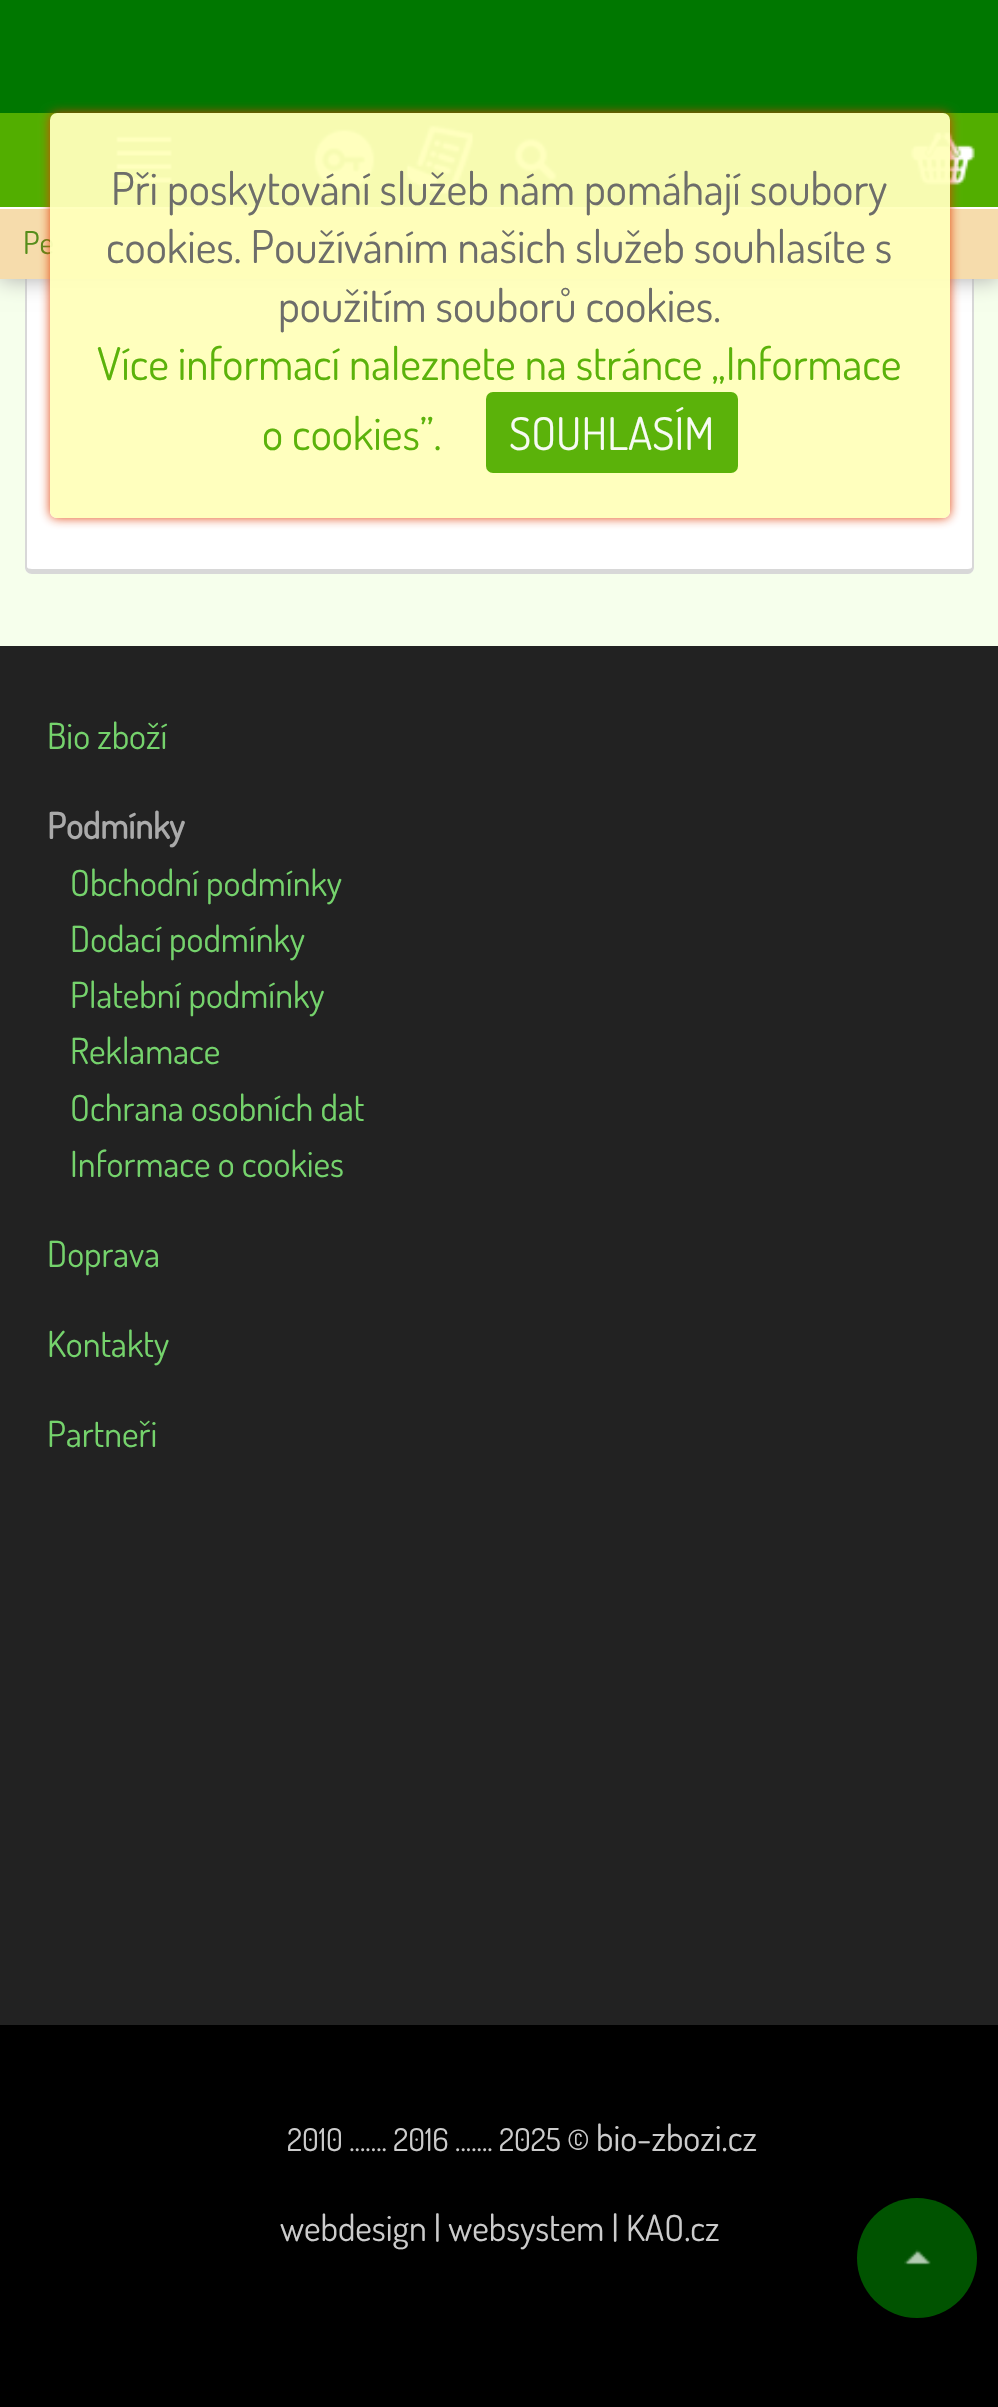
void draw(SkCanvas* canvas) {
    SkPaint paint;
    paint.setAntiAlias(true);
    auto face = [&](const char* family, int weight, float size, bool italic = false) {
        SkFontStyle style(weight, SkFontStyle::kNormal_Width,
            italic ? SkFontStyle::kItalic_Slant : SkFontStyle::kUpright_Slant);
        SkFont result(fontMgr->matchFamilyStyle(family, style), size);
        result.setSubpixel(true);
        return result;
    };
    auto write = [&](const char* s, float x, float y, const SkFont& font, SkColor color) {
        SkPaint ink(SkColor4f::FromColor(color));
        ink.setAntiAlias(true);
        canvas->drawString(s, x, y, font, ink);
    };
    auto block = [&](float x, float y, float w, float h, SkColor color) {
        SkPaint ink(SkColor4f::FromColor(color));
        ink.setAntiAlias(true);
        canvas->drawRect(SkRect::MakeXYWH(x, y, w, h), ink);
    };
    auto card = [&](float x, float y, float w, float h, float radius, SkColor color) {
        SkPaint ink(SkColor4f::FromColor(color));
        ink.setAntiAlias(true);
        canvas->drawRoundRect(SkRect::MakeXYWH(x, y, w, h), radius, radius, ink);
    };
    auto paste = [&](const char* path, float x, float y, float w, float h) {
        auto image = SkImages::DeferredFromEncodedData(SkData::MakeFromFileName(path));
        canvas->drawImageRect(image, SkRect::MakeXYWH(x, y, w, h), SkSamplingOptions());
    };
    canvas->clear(SkColorSetRGB(246, 255, 236));
    paint.setColor(SK_ColorWHITE);
    canvas->drawPath(SkPathBuilder().moveTo(25, 2).lineTo(974, 2).lineTo(974, 567).cubicTo(974, 571, 971, 574, 967, 574).lineTo(32, 574).cubicTo(28, 574, 25, 571, 25, 567).close().detach(), paint);
    paint.setColor(SkColorSetRGB(216, 216, 216));
    canvas->drawPath(SkPathBuilder(SkPathFillType::kEvenOdd).moveTo(25, 2).lineTo(974, 2).lineTo(974, 567).cubicTo(974, 571, 971, 574, 968, 574).lineTo(32, 574).cubicTo(28, 574, 25, 571, 25, 567).close().moveTo(27, 2).lineTo(972, 2).lineTo(972, 567).cubicTo(972, 568, 970, 569, 968, 569).lineTo(32, 569).cubicTo(29, 569, 27, 568, 27, 567).close().detach(), paint);
    block(0, 0, 998, 113, SkColorSetRGB(0, 119, 0));
    paint.setColor(SkColorSetRGB(170, 170, 170));
    paint.setMaskFilter(SkMaskFilter::MakeBlur(kNormal_SkBlurStyle, 11));
    canvas->drawRect(SkRect::MakeXYWH(0, 207, 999, 72), paint);
    paint.setMaskFilter(nullptr);
    block(0, 113, 998, 94, SkColorSetRGB(82, 174, 0));
    paste("pic1.png", 116, 136, 56, 47);
    paste("pic2.png", 313, 129, 62, 62);
    paste("pic3.png", 406, 125, 68, 70);
    paste("pic4.png", 514, 138, 43, 43);
    paste("pic5.png", 910, 132, 65, 54);
    block(0, 209, 998, 70, SkColorSetRGB(246, 220, 172));
    block(0, 207, 998, 2, SK_ColorWHITE);
    auto kFont1 = face("Dosis", 400, 31.5f);
    write("Pe", 23, 254, kFont1, SkColorSetRGB(86, 141, 27));
    canvas->save();
    canvas->clipPath(SkPathBuilder(SkPathFillType::kEvenOdd).moveTo(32, 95).lineTo(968, 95).lineTo(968, 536).lineTo(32, 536).close().moveTo(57, 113).lineTo(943, 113).cubicTo(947, 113, 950, 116, 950, 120).lineTo(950, 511).cubicTo(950, 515, 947, 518, 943, 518).lineTo(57, 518).cubicTo(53, 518, 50, 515, 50, 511).lineTo(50, 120).cubicTo(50, 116, 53, 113, 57, 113).close().detach(), true);
    paint.setColor(SkColorSetARGB(242, 226, 61, 4));
    paint.setMaskFilter(SkMaskFilter::MakeBlur(kNormal_SkBlurStyle, 5.5f));
    canvas->drawRoundRect(SkRect::MakeXYWH(50, 113, 900, 405), 7, 7, paint);
    paint.setMaskFilter(nullptr);
    canvas->restore();
    card(50, 113, 900, 405, 7, SkColorSetARGB(242, 255, 255, 187));
    auto kFont2 = face("Dosis", 400, 45);
    write("Při poskytování služeb nám pomáhají soubory", 111, 205, kFont2, SkColorSetRGB(109, 109, 106));
    write("cookies. Používáním našich služeb souhlasíte s", 106, 263, kFont2, SkColorSetRGB(109, 109, 106));
    write("použitím souborů cookies.", 278, 322, kFont2, SkColorSetRGB(109, 109, 106));
    write("Více informací naleznete na stránce „Informace", 97, 380, kFont2, SkColorSetRGB(91, 178, 10));
    write("o cookies”.", 262, 450, kFont2, SkColorSetRGB(91, 178, 10));
    card(486, 392, 252, 81, 7, SkColorSetARGB(242, 82, 174, 0));
    write("SOUHLASÍM", 509, 450, kFont2, SkColorSetRGB(247, 251, 243));
    block(0, 646, 998, 1379, SkColorSetRGB(34, 34, 34));
    auto kFont3 = face("Dosis", 400, 36);
    write("Bio zboží", 47, 749, kFont3, SkColorSetRGB(117, 211, 108));
    auto kFont4 = face("Dosis", 700, 36);
    write("Podmínky", 47, 839, kFont4, SkColorSetRGB(170, 170, 170));
    write("Obchodní podmínky", 70, 896, kFont3, SkColorSetRGB(117, 211, 108));
    write("Dodací podmínky", 70, 952, kFont3, SkColorSetRGB(117, 211, 108));
    write("Platební podmínky", 70, 1008, kFont3, SkColorSetRGB(117, 211, 108));
    write("Reklamace", 70, 1064, kFont3, SkColorSetRGB(117, 211, 108));
    write("Ochrana osobních dat", 70, 1121, kFont3, SkColorSetRGB(117, 211, 108));
    write("Informace o cookies", 70, 1177, kFont3, SkColorSetRGB(117, 211, 108));
    write("Doprava", 47, 1267, kFont3, SkColorSetRGB(117, 211, 108));
    write("Kontakty", 47, 1357, kFont3, SkColorSetRGB(117, 211, 108));
    write("Partneři", 47, 1447, kFont3, SkColorSetRGB(117, 211, 108));
    block(0, 2025, 998, 382, SK_ColorBLACK);
    write("2010 ....... 2016 ....... 2025 ©", 287, 2151, kFont1, SkColorSetRGB(204, 204, 204));
    write("bio-zbozi.cz", 596, 2151, kFont3, SkColorSetRGB(204, 204, 204));
    write("webdesign | websystem | KAO.cz", 280, 2241, kFont3, SkColorSetRGB(204, 204, 204));
    paint.setColor(SkColorSetRGB(0, 83, 0));
    canvas->drawCircle(917, 2258, 60, paint);
    paste("pic6.png", 904, 2249, 27, 16);
}
